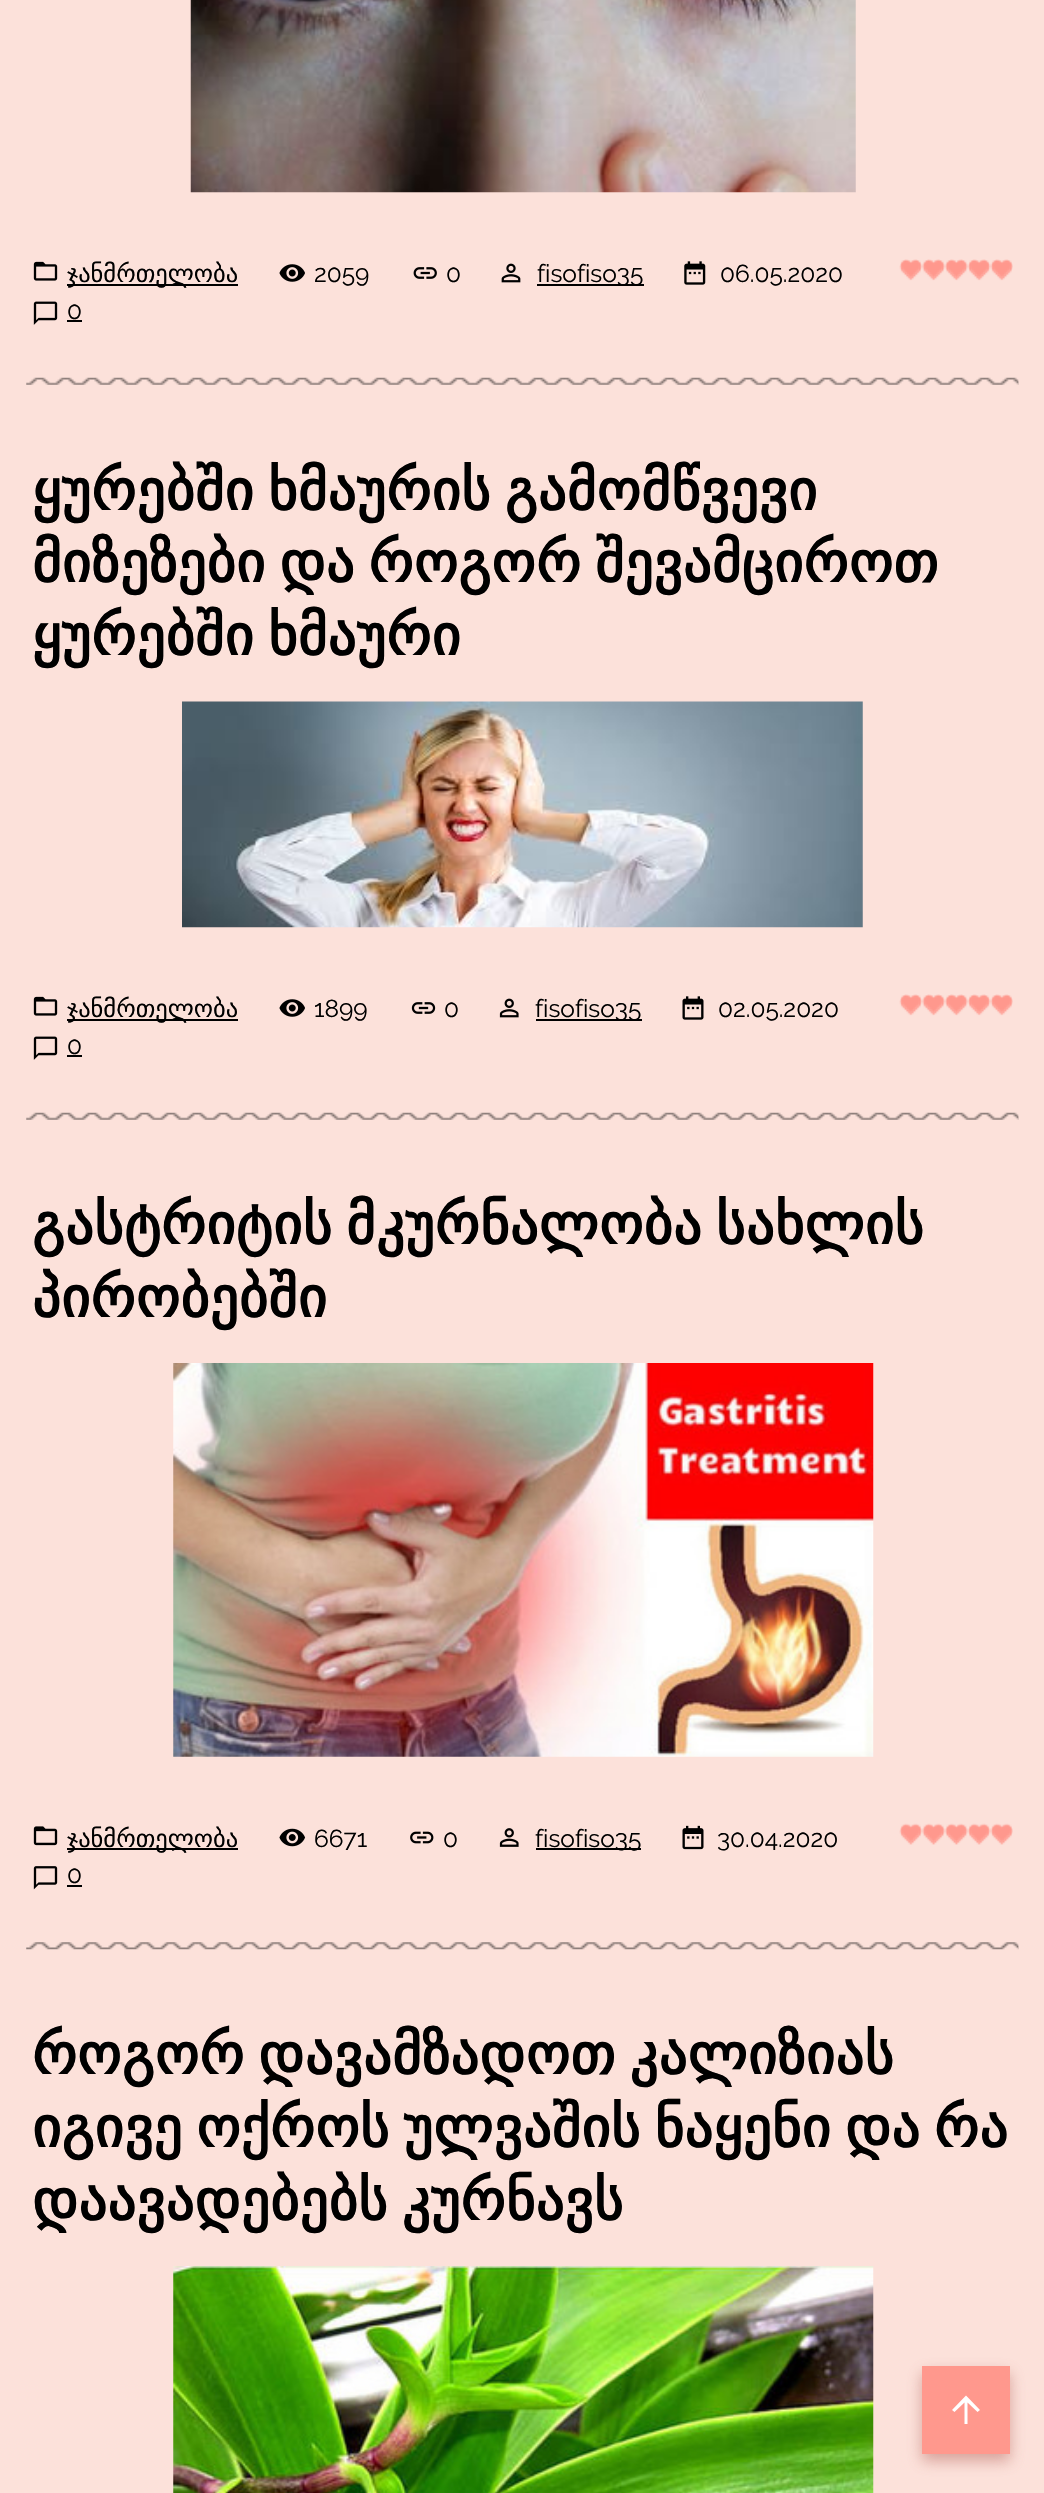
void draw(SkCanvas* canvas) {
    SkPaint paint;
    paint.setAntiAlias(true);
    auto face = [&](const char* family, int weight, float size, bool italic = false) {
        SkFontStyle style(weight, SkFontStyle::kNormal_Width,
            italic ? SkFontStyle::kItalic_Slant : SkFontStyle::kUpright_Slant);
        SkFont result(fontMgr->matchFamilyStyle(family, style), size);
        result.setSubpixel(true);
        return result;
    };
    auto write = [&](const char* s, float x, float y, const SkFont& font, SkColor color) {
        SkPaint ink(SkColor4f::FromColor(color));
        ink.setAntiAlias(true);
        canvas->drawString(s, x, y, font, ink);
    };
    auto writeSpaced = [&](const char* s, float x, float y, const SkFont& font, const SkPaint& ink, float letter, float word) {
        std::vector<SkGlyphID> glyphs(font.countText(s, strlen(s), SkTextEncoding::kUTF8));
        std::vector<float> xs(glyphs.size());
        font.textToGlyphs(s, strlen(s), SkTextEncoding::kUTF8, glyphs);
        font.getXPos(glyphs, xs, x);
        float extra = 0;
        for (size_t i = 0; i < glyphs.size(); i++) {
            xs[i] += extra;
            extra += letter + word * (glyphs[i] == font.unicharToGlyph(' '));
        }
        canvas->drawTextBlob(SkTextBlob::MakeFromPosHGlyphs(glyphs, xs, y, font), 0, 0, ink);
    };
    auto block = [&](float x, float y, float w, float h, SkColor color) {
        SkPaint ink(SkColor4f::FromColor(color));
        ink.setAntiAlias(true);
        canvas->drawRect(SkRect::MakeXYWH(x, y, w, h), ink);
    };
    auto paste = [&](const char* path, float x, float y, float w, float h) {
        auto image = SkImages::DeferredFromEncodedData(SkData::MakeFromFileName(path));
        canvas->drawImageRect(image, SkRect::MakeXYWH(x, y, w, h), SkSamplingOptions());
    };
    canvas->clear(SkColorSetRGB(252, 225, 218));
    paste("pic1.png", 190, 0, 666, 193);
    paste("pic2.png", 33, 261, 25, 20);
    block(67, 284, 171, 2, SK_ColorBLACK);
    auto kFont1 = face("DejaVu Sans", 400, 24.5f);
    write("ჯანმრთელობა", 67, 282, kFont1, SK_ColorBLACK);
    paste("pic3.png", 279, 264, 26, 18);
    auto kFont2 = face("Raleway", 400, 24.5f);
    write("2059", 314, 282, kFont2, SK_ColorBLACK);
    paste("pic4.png", 413, 267, 24, 12);
    write("0", 446, 282, kFont2, SK_ColorBLACK);
    paste("pic5.png", 501, 263, 20, 20);
    block(537, 284, 107, 2, SK_ColorBLACK);
    write("fisofiso35", 537, 282, kFont2, SK_ColorBLACK);
    paste("pic6.png", 684, 261, 22, 24);
    write("06.05.2020", 720, 282, kFont2, SK_ColorBLACK);
    paste("pic7.png", 899, 260, 114, 21);
    paste("pic8.png", 900, 259, 113, 20);
    paste("pic9.png", 33, 301, 25, 24);
    write("0", 67, 319, kFont2, SK_ColorBLACK);
    block(67, 320, 15, 2, SK_ColorBLACK);
    paste("pic10.png", 26, 377, 993, 8);
    auto kFont3 = face("DejaVu Sans", 700, 56);
    paint.setColor(SK_ColorBLACK);
    writeSpaced("ყურებში ხმაურის გამომწვევი", 32, 510, kFont3, paint, 0.55f, -4.5f);
    writeSpaced("მიზეზები და როგორ შევამციროთ", 32, 582, kFont3, paint, 0.55f, -4.5f);
    writeSpaced("ყურებში ხმაური", 32, 655, kFont3, paint, 0.55f, -4.5f);
    paste("pic11.png", 182, 701, 681, 227);
    paste("pic2.png", 33, 996, 25, 20);
    block(67, 1019, 171, 2, SK_ColorBLACK);
    write("ჯანმრთელობა", 67, 1017, kFont1, SK_ColorBLACK);
    paste("pic3.png", 279, 999, 26, 18);
    write("1899", 314, 1017, kFont2, SK_ColorBLACK);
    paste("pic12.png", 411, 1002, 25, 12);
    write("0", 444, 1017, kFont2, SK_ColorBLACK);
    paste("pic13.png", 499, 998, 20, 20);
    block(536, 1019, 106, 2, SK_ColorBLACK);
    write("fisofiso35", 535, 1017, kFont2, SK_ColorBLACK);
    paste("pic14.png", 682, 996, 22, 24);
    write("02.05.2020", 718, 1017, kFont2, SK_ColorBLACK);
    paste("pic15.png", 899, 995, 114, 21);
    paste("pic16.png", 900, 994, 113, 20);
    paste("pic9.png", 33, 1036, 25, 24);
    write("0", 67, 1054, kFont2, SK_ColorBLACK);
    block(67, 1055, 15, 2, SK_ColorBLACK);
    paste("pic17.png", 26, 1112, 993, 8);
    writeSpaced("გასტრიტის მკურნალობა სახლის", 32, 1244, kFont3, paint, 0.55f, -4.5f);
    writeSpaced("პირობებში", 32, 1317, kFont3, paint, 0.55f, 0);
    paste("pic18.png", 173, 1363, 701, 394);
    paste("pic19.png", 33, 1826, 25, 20);
    block(67, 1848, 171, 2, SK_ColorBLACK);
    write("ჯანმრთელობა", 67, 1847, kFont1, SK_ColorBLACK);
    paste("pic20.png", 279, 1828, 27, 19);
    write("6671", 314, 1847, kFont2, SK_ColorBLACK);
    paste("pic21.png", 410, 1831, 24, 13);
    write("0", 443, 1847, kFont2, SK_ColorBLACK);
    paste("pic22.png", 499, 1828, 20, 19);
    block(536, 1848, 105, 2, SK_ColorBLACK);
    write("fisofiso35", 535, 1847, kFont2, SK_ColorBLACK);
    paste("pic23.png", 682, 1825, 22, 25);
    write("30.04.2020", 717, 1847, kFont2, SK_ColorBLACK);
    paste("pic24.png", 899, 1825, 114, 20);
    paste("pic25.png", 900, 1823, 113, 20);
    paste("pic26.png", 33, 1866, 25, 24);
    write("0", 67, 1883, kFont2, SK_ColorBLACK);
    block(67, 1885, 15, 2, SK_ColorBLACK);
    paste("pic27.png", 26, 1942, 993, 8);
    writeSpaced("როგორ დავამზადოთ კალიზიას", 32, 2074, kFont3, paint, 0.55f, -4.5f);
    writeSpaced("იგივე ოქროს ულვაშის ნაყენი და რა", 32, 2147, kFont3, paint, 0.55f, -4.5f);
    writeSpaced("დაავადებებს კურნავს", 32, 2220, kFont3, paint, 0.55f, -4.5f);
    paste("pic28.png", 173, 2266, 701, 227);
    paint.setColor(SkColorSetARGB(120, 173, 90, 81));
    paint.setMaskFilter(SkMaskFilter::MakeBlur(kNormal_SkBlurStyle, 7));
    canvas->drawRect(SkRect::MakeXYWH(922, 2373, 88, 88), paint);
    paint.setMaskFilter(nullptr);
    block(922, 2366, 88, 88, SkColorSetRGB(255, 152, 141));
    paint.setColor(SK_ColorWHITE);
    canvas->drawPath(SkPathBuilder().moveTo(952, 2410).lineTo(966, 2395.5f).lineTo(980, 2410).lineTo(977.5f, 2412).lineTo(967.5f, 2402.5f).lineTo(967.5f, 2424).lineTo(964.5f, 2424).lineTo(964.5f, 2402.5f).lineTo(954.5f, 2412).close().detach(), paint);
}
